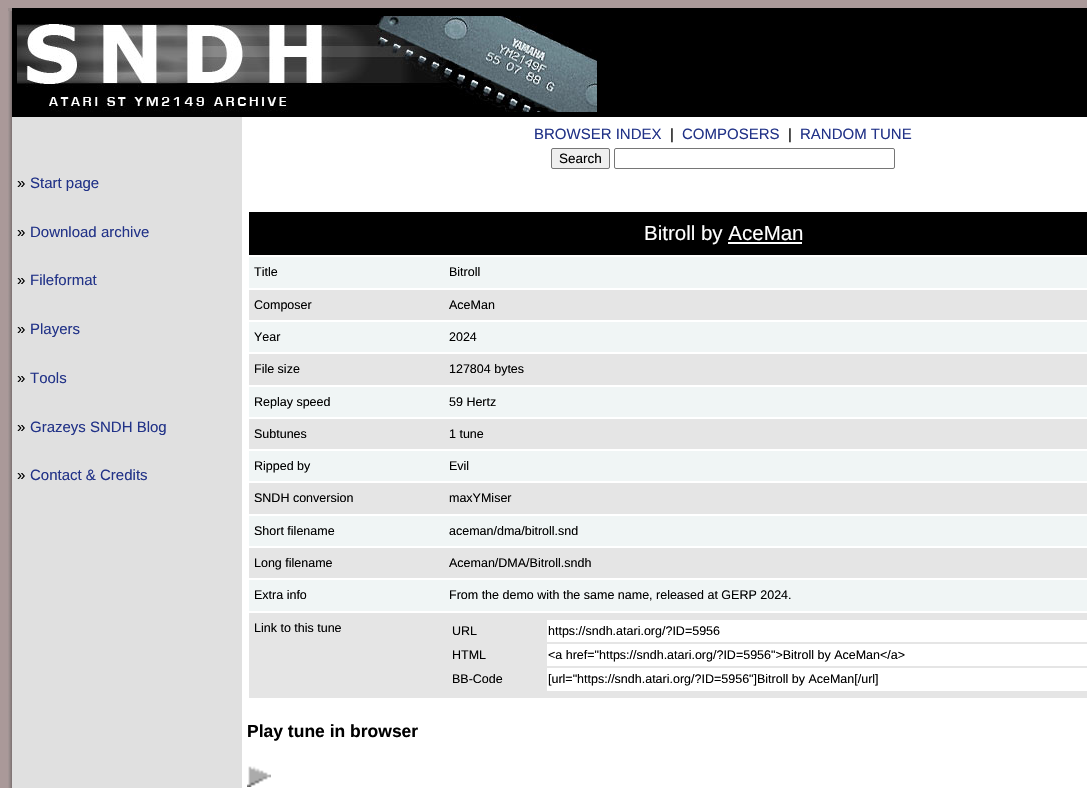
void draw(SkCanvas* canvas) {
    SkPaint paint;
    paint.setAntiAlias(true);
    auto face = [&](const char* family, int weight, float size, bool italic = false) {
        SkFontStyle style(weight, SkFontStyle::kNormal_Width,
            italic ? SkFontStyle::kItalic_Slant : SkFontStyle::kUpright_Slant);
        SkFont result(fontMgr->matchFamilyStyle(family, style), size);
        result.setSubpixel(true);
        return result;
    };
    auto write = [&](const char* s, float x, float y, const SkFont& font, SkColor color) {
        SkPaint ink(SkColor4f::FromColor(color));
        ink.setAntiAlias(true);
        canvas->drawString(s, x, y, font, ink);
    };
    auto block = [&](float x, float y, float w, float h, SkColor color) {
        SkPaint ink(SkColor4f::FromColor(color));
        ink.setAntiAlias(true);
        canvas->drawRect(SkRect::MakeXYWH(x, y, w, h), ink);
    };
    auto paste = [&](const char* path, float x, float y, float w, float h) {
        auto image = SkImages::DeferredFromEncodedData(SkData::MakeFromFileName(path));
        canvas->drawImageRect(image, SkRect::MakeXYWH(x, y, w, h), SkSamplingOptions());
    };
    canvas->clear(SkColorSetRGB(170, 153, 153));
    block(8, 8, 4, 3, SkColorSetRGB(153, 140, 140));
    block(12, 8, 1075, 109, SK_ColorBLACK);
    paste("pic1.png", 8, 11, 4, 777);
    block(242, 117, 845, 671, SK_ColorWHITE);
    paste("pic2.png", 17, 16, 580, 96);
    block(12, 117, 230, 671, SkColorSetRGB(224, 224, 224));
    auto kFont1 = face("Liberation Sans", 400, 15);
    write("»", 17, 188, kFont1, SK_ColorBLACK);
    write("Start page", 30, 188, kFont1, SkColorSetRGB(34, 51, 136));
    write("»", 17, 237, kFont1, SK_ColorBLACK);
    write("Download archive", 30, 237, kFont1, SkColorSetRGB(34, 51, 136));
    write("»", 17, 285, kFont1, SK_ColorBLACK);
    write("Fileformat", 30, 285, kFont1, SkColorSetRGB(34, 51, 136));
    write("»", 17, 334, kFont1, SK_ColorBLACK);
    write("Players", 30, 334, kFont1, SkColorSetRGB(34, 51, 136));
    write("»", 17, 383, kFont1, SK_ColorBLACK);
    write("Tools", 30, 383, kFont1, SkColorSetRGB(34, 51, 136));
    write("»", 17, 432, kFont1, SK_ColorBLACK);
    write("Grazeys SNDH Blog", 30, 432, kFont1, SkColorSetRGB(34, 51, 136));
    write("»", 17, 480, kFont1, SK_ColorBLACK);
    write("Contact & Credits", 30, 480, kFont1, SkColorSetRGB(34, 51, 136));
    write("BROWSER INDEX", 534, 139, kFont1, SkColorSetRGB(34, 51, 136));
    write("|", 670, 139, kFont1, SK_ColorBLACK);
    write("COMPOSERS", 682, 139, kFont1, SkColorSetRGB(34, 51, 136));
    write("|", 788, 139, kFont1, SK_ColorBLACK);
    write("RANDOM TUNE", 800, 139, kFont1, SkColorSetRGB(34, 51, 136));
    paint.setColor(SkColorSetRGB(239, 239, 239));
    canvas->drawRoundRect(SkRect::MakeXYWH(551.5f, 148.5f, 58, 20), 1.5f, 1.5f, paint);
    paint.setStyle(SkPaint::kStroke_Style);
    paint.setStrokeWidth(1);
    paint.setColor(SkColorSetRGB(118, 118, 118));
    canvas->drawRoundRect(SkRect::MakeXYWH(551.5f, 148.5f, 58, 20), 1.5f, 1.5f, paint);
    auto kFont2 = face("Liberation Sans", 400, 13.5f);
    write("Search", 559, 163, kFont2, SK_ColorBLACK);
    canvas->drawRoundRect(SkRect::MakeXYWH(614.5f, 148.5f, 280, 20), 1.5f, 1.5f, paint);
    block(249, 212, 838, 43, SK_ColorBLACK);
    auto kFont3 = face("Liberation Sans", 400, 20.5f);
    write("Bitroll by AceMan", 644, 240, kFont3, SK_ColorWHITE);
    block(728, 242, 74, 2, SK_ColorWHITE);
    block(249, 257, 838, 31, SkColorSetRGB(240, 245, 245));
    auto kFont4 = face("Liberation Sans", 400, 12.5f);
    write("Title", 254, 276, kFont4, SK_ColorBLACK);
    write("Bitroll", 449, 276, kFont4, SK_ColorBLACK);
    block(249, 290, 838, 30, SkColorSetRGB(229, 229, 229));
    write("Composer", 254, 309, kFont4, SK_ColorBLACK);
    write("AceMan", 449, 309, kFont4, SK_ColorBLACK);
    block(249, 322, 838, 30, SkColorSetRGB(240, 245, 245));
    write("Year", 254, 341, kFont4, SK_ColorBLACK);
    write("2024", 449, 341, kFont4, SK_ColorBLACK);
    block(249, 354, 838, 31, SkColorSetRGB(229, 229, 229));
    write("File size", 254, 373, kFont4, SK_ColorBLACK);
    write("127804 bytes", 449, 373, kFont4, SK_ColorBLACK);
    block(249, 387, 838, 30, SkColorSetRGB(240, 245, 245));
    write("Replay speed", 254, 406, kFont4, SK_ColorBLACK);
    write("59 Hertz", 449, 406, kFont4, SK_ColorBLACK);
    block(249, 419, 838, 30, SkColorSetRGB(229, 229, 229));
    write("Subtunes", 254, 438, kFont4, SK_ColorBLACK);
    write("1 tune", 449, 438, kFont4, SK_ColorBLACK);
    block(249, 451, 838, 30, SkColorSetRGB(240, 245, 245));
    write("Ripped by", 254, 470, kFont4, SK_ColorBLACK);
    write("Evil", 449, 470, kFont4, SK_ColorBLACK);
    block(249, 483, 838, 31, SkColorSetRGB(229, 229, 229));
    write("SNDH conversion", 254, 502, kFont4, SK_ColorBLACK);
    write("maxYMiser", 449, 502, kFont4, SK_ColorBLACK);
    block(249, 516, 838, 30, SkColorSetRGB(240, 245, 245));
    write("Short filename", 254, 535, kFont4, SK_ColorBLACK);
    write("aceman/dma/bitroll.snd", 449, 535, kFont4, SK_ColorBLACK);
    block(249, 548, 838, 30, SkColorSetRGB(229, 229, 229));
    write("Long filename", 254, 567, kFont4, SK_ColorBLACK);
    write("Aceman/DMA/Bitroll.sndh", 449, 567, kFont4, SK_ColorBLACK);
    block(249, 580, 838, 31, SkColorSetRGB(240, 245, 245));
    write("Extra info", 254, 599, kFont4, SK_ColorBLACK);
    write("From the demo with the same name, released at GERP 2024.", 449, 599, kFont4, SK_ColorBLACK);
    block(249, 613, 838, 85, SkColorSetRGB(229, 229, 229));
    write("Link to this tune", 254, 632, kFont4, SK_ColorBLACK);
    write("URL", 452, 635, kFont4, SK_ColorBLACK);
    block(547, 620, 540, 22, SK_ColorWHITE);
    write("https://sndh.atari.org/?ID=5956", 548, 635, kFont4, SK_ColorBLACK);
    write("HTML", 452, 659, kFont4, SK_ColorBLACK);
    block(547, 644, 540, 22, SK_ColorWHITE);
    write("<a href=\"https://sndh.atari.org/?ID=5956\">Bitroll by AceMan</a>", 548, 659, kFont4, SK_ColorBLACK);
    write("BB-Code", 452, 683, kFont4, SK_ColorBLACK);
    block(547, 668, 540, 23, SK_ColorWHITE);
    write("[url=\"https://sndh.atari.org/?ID=5956\"]Bitroll by AceMan[/url]", 548, 683, kFont4, SK_ColorBLACK);
    auto kFont5 = face("Liberation Sans", 700, 17.5f);
    write("Play tune in browser", 247, 737, kFont5, SK_ColorBLACK);
    paste("pic3.png", 247, 766, 24, 21);
}
